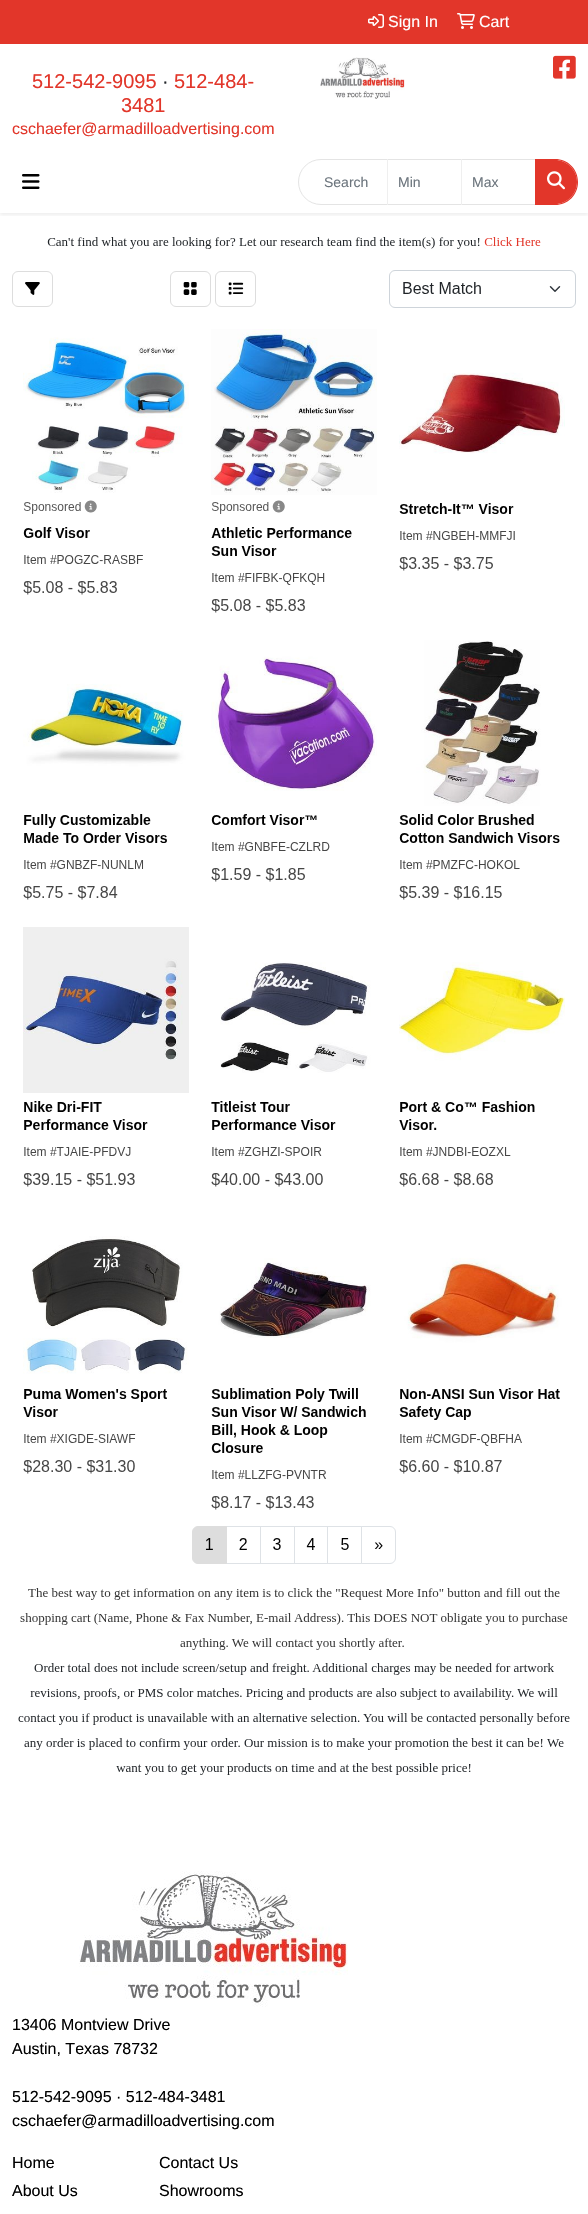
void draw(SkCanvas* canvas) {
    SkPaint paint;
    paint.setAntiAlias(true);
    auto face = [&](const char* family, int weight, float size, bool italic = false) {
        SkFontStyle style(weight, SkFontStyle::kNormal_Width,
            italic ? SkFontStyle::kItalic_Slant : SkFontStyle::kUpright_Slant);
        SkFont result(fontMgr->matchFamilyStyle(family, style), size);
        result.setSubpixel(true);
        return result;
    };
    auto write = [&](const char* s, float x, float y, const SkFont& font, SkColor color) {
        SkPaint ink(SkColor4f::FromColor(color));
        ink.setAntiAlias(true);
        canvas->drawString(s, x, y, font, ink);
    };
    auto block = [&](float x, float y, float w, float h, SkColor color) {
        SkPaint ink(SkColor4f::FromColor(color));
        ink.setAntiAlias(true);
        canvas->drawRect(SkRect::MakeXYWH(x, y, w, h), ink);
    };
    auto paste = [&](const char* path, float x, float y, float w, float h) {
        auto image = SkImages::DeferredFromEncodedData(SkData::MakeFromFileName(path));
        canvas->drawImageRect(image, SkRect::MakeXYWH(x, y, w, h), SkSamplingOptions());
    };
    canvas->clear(SK_ColorWHITE);
    block(0, 0, 588, 44, SkColorSetRGB(226, 54, 42));
    paste("pic1.png", 368, 14, 16, 14);
    auto kFont1 = face("Liberation Sans", 400, 16);
    write("Sign In", 388, 27, kFont1, SK_ColorWHITE);
    paste("pic2.png", 457, 13, 18, 16);
    write("Cart", 479, 27, kFont1, SK_ColorWHITE);
    auto kFont2 = face("Liberation Sans", 400, 20);
    write("512-542-9095", 32, 88, kFont2, SkColorSetRGB(226, 54, 42));
    write("·", 162, 88, kFont2, SkColorSetRGB(33, 37, 41));
    write("512-484-", 174, 88, kFont2, SkColorSetRGB(226, 54, 42));
    write("3481", 121, 112, kFont2, SkColorSetRGB(226, 54, 42));
    write("cschaefer@armadilloadvertising.com", 12, 134, kFont1, SkColorSetRGB(226, 54, 42));
    paste("pic3.png", 320, 57, 85, 42);
    paste("pic4.png", 553, 55, 23, 24);
    canvas->save();
    canvas->clipRect(SkRect::MakeXYWH(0, 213, 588, 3));
    paint.setColor(SkColorSetARGB(18, 0, 0, 0));
    paint.setMaskFilter(SkMaskFilter::MakeBlur(kNormal_SkBlurStyle, 2));
    canvas->drawRect(SkRect::MakeXYWH(0, 153, 588, 62), paint);
    paint.setMaskFilter(nullptr);
    canvas->restore();
    paste("pic5.png", 22, 174, 18, 15);
    paint.setStyle(SkPaint::kStroke_Style);
    paint.setStrokeWidth(1);
    paint.setColor(SkColorSetRGB(228, 228, 228));
    canvas->drawPath(SkPathBuilder().moveTo(321, 159.5f).lineTo(387.5f, 159.5f).lineTo(387.5f, 204.5f).lineTo(321, 204.5f).cubicTo(308.5f, 204.5f, 298.5f, 194.5f, 298.5f, 182).cubicTo(298.5f, 169.5f, 308.5f, 159.5f, 321, 159.5f).close().detach(), paint);
    auto kFont3 = face("Liberation Sans", 400, 14);
    write("Search", 324, 187, kFont3, SkColorSetRGB(108, 117, 125));
    block(387, 159, 149, 1, SkColorSetRGB(228, 228, 228));
    block(387, 204, 149, 1, SkColorSetRGB(228, 228, 228));
    block(387, 159, 1, 46, SkColorSetRGB(239, 239, 239));
    write("Min", 398, 187, kFont3, SkColorSetRGB(108, 117, 125));
    block(461, 159, 1, 46, SkColorSetRGB(239, 239, 239));
    write("Max", 472, 187, kFont3, SkColorSetRGB(108, 117, 125));
    paint.setStyle(SkPaint::kFill_Style);
    paint.setColor(SkColorSetRGB(226, 54, 42));
    canvas->drawPath(SkPathBuilder().moveTo(535, 160).lineTo(555, 160).cubicTo(567, 160, 577, 170, 577, 182).cubicTo(577, 194, 567, 204, 555, 204).lineTo(535, 204).close().detach(), paint);
    canvas->drawPath(SkPathBuilder(SkPathFillType::kEvenOdd).moveTo(535, 159).lineTo(555, 159).cubicTo(568, 159, 578, 169, 578, 182).cubicTo(578, 195, 568, 205, 555, 205).lineTo(535, 205).close().moveTo(535, 160).lineTo(555, 160).cubicTo(567, 160, 577, 170, 577, 182).cubicTo(577, 194, 567, 204, 555, 204).lineTo(535, 204).close().detach(), paint);
    paste("pic6.png", 547, 171, 18, 19);
    paste("pic7.png", 12, 237, 564, 1538);
    paste("pic8.png", 79, 1871, 269, 136);
    write("13406 Montview Drive", 12, 2030, kFont1, SK_ColorBLACK);
    write("Austin, Texas 78732", 12, 2054, kFont1, SK_ColorBLACK);
    write("512-542-9095 · 512-484-3481", 12, 2102, kFont1, SK_ColorBLACK);
    write("cschaefer@armadilloadvertising.com", 12, 2126, kFont1, SK_ColorBLACK);
    write("Home", 12, 2168, kFont1, SK_ColorBLACK);
    write("About Us", 12, 2196, kFont1, SK_ColorBLACK);
    write("Contact Us", 159, 2168, kFont1, SK_ColorBLACK);
    write("Showrooms", 159, 2196, kFont1, SK_ColorBLACK);
}
